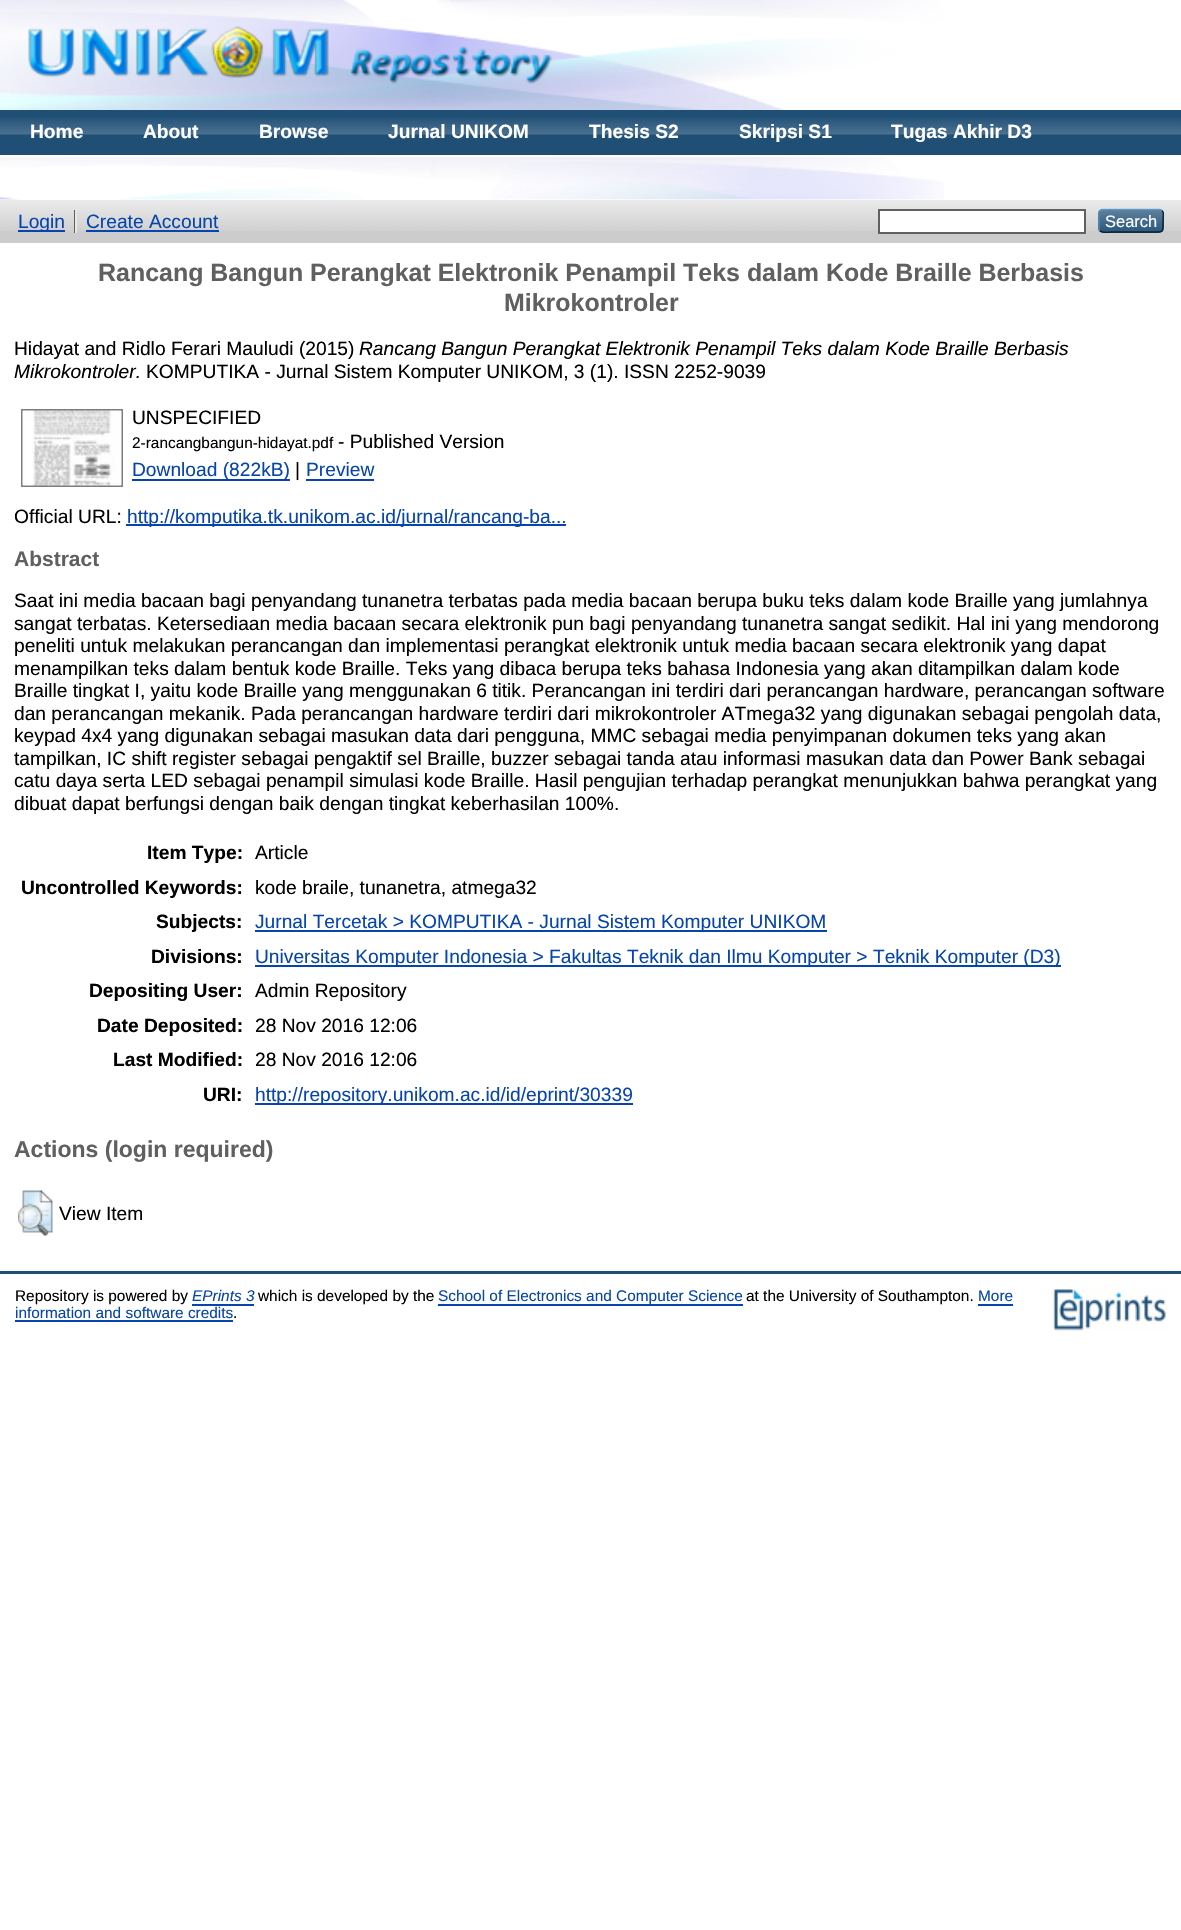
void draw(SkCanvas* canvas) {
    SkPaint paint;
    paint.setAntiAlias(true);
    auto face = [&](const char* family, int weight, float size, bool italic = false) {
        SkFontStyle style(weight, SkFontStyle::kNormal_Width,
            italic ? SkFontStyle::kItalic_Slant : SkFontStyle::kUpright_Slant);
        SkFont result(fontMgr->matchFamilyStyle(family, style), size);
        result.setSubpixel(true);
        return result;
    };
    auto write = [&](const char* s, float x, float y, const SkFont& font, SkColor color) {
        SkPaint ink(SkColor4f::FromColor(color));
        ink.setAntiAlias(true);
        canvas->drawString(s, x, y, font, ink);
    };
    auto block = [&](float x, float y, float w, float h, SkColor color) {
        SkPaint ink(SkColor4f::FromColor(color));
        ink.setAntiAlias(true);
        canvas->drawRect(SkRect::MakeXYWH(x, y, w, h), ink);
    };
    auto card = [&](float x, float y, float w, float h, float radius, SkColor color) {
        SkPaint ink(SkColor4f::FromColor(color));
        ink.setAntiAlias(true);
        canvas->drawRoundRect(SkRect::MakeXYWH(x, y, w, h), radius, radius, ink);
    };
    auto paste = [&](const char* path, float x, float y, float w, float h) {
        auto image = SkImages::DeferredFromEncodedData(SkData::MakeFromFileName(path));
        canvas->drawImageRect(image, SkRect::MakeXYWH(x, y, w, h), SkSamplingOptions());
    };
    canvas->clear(SK_ColorWHITE);
    paste("pic1.png", 0, 0, 944, 200);
    paste("pic2.png", 28, 26, 524, 58);
    block(0, 110, 1181, 45, SkColorSetRGB(32, 79, 118));
    paste("pic3.png", 0, 118, 1181, 17);
    block(0, 155, 884, 2, SK_ColorWHITE);
    auto kFont1 = face("Liberation Sans", 700, 19.2f);
    write("Home", 30, 138, kFont1, SK_ColorWHITE);
    write("About", 143, 138, kFont1, SK_ColorWHITE);
    write("Browse", 259, 138, kFont1, SK_ColorWHITE);
    write("Jurnal UNIKOM", 388, 138, kFont1, SK_ColorWHITE);
    write("Thesis S2", 589, 138, kFont1, SK_ColorWHITE);
    write("Skripsi S1", 739, 138, kFont1, SK_ColorWHITE);
    write("Tugas Akhir D3", 891, 138, kFont1, SK_ColorWHITE);
    block(0, 200, 1181, 43, SkColorSetRGB(204, 204, 204));
    paste("pic4.png", 0, 199, 1181, 32);
    block(18, 230, 47, 2, SkColorSetRGB(6, 69, 173));
    auto kFont2 = face("Liberation Sans", 400, 19.2f);
    write("Login", 18, 228, kFont2, SkColorSetRGB(6, 69, 173));
    block(74, 210, 1, 23, SkColorSetRGB(96, 96, 96));
    write("Create Account", 86, 228, kFont2, SkColorSetRGB(6, 69, 173));
    block(75, 210, 2, 23, SkColorSetRGB(232, 232, 232));
    block(86, 230, 133, 2, SkColorSetRGB(6, 69, 173));
    paint.setColor(SK_ColorWHITE);
    canvas->drawRect(SkRect::MakeXYWH(879, 210, 206, 23), paint);
    paint.setStyle(SkPaint::kStroke_Style);
    paint.setStrokeWidth(2);
    paint.setColor(SkColorSetRGB(96, 96, 96));
    canvas->drawRect(SkRect::MakeXYWH(879, 210, 206, 23), paint);
    card(1098, 209, 66, 24, 5, SkColorSetRGB(31, 79, 118));
    paste("pic5.png", 1098, 208, 66, 24);
    paint.setStrokeWidth(1.5f);
    paint.setColor(SkColorSetRGB(91, 151, 199));
    canvas->drawPath(SkPathBuilder().moveTo(1100, 210.5f).lineTo(1102, 209.5f).lineTo(1160, 209.5f).lineTo(1162, 210.5f).detach(), paint);
    paint.setColor(SkColorSetRGB(13, 33, 49));
    canvas->drawPath(SkPathBuilder().moveTo(1162, 210.5f).cubicTo(1164.5f, 212.5f, 1163, 217.5f, 1163, 220.5f).cubicTo(1163, 233.5f, 1164, 232, 1150, 232).lineTo(1112, 232).cubicTo(1111.5f, 232, 1102.5f, 233.5f, 1100, 230.5f).detach(), paint);
    paint.setColor(SkColorSetRGB(82, 135, 179));
    canvas->drawPath(SkPathBuilder().moveTo(1100, 230.5f).cubicTo(1099, 230, 1099, 229, 1099, 228).lineTo(1099, 213).cubicTo(1099, 212, 1099, 211, 1100, 210.5f).detach(), paint);
    auto kFont3 = face("Liberation Sans", 400, 16.5f);
    write("Search", 1105, 227, kFont3, SK_ColorWHITE);
    auto kFont4 = face("Liberation Sans", 700, 24.95f);
    write("Rancang Bangun Perangkat Elektronik Penampil Teks dalam Kode Braille Berbasis", 98, 281, kFont4, SkColorSetRGB(96, 96, 96));
    write("Mikrokontroler", 504, 311, kFont4, SkColorSetRGB(96, 96, 96));
    write("Hidayat and Ridlo Ferari Mauludi (2015)", 14, 355, kFont2, SK_ColorBLACK);
    auto kFont5 = face("Liberation Sans", 400, 19.2f, true);
    write("Rancang Bangun Perangkat Elektronik Penampil Teks dalam Kode Braille Berbasis", 359, 355, kFont5, SK_ColorBLACK);
    write("Mikrokontroler.", 14, 378, kFont5, SK_ColorBLACK);
    write("KOMPUTIKA - Jurnal Sistem Komputer UNIKOM, 3 (1). ISSN 2252-9039", 146, 378, kFont2, SK_ColorBLACK);
    paste("pic6.png", 21, 409, 102, 78);
    write("UNSPECIFIED", 132, 424, kFont2, SK_ColorBLACK);
    auto kFont6 = face("Liberation Sans", 400, 15.4f);
    write("2-rancangbangun-hidayat.pdf", 132, 448, kFont6, SK_ColorBLACK);
    write("- Published Version", 338, 448, kFont2, SK_ColorBLACK);
    block(132, 479, 158, 2, SkColorSetRGB(6, 69, 173));
    write("Download (822kB)", 132, 476, kFont2, SkColorSetRGB(6, 69, 173));
    write("|", 295, 476, kFont2, SK_ColorBLACK);
    write("Preview", 306, 476, kFont2, SkColorSetRGB(6, 69, 173));
    block(306, 479, 68, 2, SkColorSetRGB(6, 69, 173));
    write("Official URL:", 14, 523, kFont2, SK_ColorBLACK);
    block(126, 524, 440, 2, SkColorSetRGB(6, 69, 173));
    write("http://komputika.tk.unikom.ac.id/jurnal/rancang-ba...", 127, 523, kFont2, SkColorSetRGB(6, 69, 173));
    auto kFont7 = face("Liberation Sans", 700, 21);
    write("Abstract", 14, 566, kFont7, SkColorSetRGB(96, 96, 96));
    write("Saat ini media bacaan bagi penyandang tunanetra terbatas pada media bacaan berupa buku teks dalam kode Braille yang jumlahnya", 14, 607, kFont2, SK_ColorBLACK);
    write("sangat terbatas. Ketersediaan media bacaan secara elektronik pun bagi penyandang tunanetra sangat sedikit. Hal ini yang mendorong", 14, 630, kFont2, SK_ColorBLACK);
    write("peneliti untuk melakukan perancangan dan implementasi perangkat elektronik untuk media bacaan secara elektronik yang dapat", 14, 652, kFont2, SK_ColorBLACK);
    write("menampilkan teks dalam bentuk kode Braille. Teks yang dibaca berupa teks bahasa Indonesia yang akan ditampilkan dalam kode", 14, 675, kFont2, SK_ColorBLACK);
    write("Braille tingkat I, yaitu kode Braille yang menggunakan 6 titik. Perancangan ini terdiri dari perancangan hardware, perancangan software", 14, 697, kFont2, SK_ColorBLACK);
    write("dan perancangan mekanik. Pada perancangan hardware terdiri dari mikrokontroler ATmega32 yang digunakan sebagai pengolah data,", 14, 720, kFont2, SK_ColorBLACK);
    write("keypad 4x4 yang digunakan sebagai masukan data dari pengguna, MMC sebagai media penyimpanan dokumen teks yang akan", 14, 742, kFont2, SK_ColorBLACK);
    write("tampilkan, IC shift register sebagai pengaktif sel Braille, buzzer sebagai tanda atau informasi masukan data dan Power Bank sebagai", 14, 765, kFont2, SK_ColorBLACK);
    write("catu daya serta LED sebagai penampil simulasi kode Braille. Hasil pengujian terhadap perangkat menunjukkan bahwa perangkat yang", 14, 787, kFont2, SK_ColorBLACK);
    write("dibuat dapat berfungsi dengan baik dengan tingkat keberhasilan 100%.", 14, 810, kFont2, SK_ColorBLACK);
    write("Item Type:", 147, 859, kFont1, SK_ColorBLACK);
    write("Article", 255, 859, kFont2, SK_ColorBLACK);
    write("Uncontrolled Keywords:", 21, 894, kFont1, SK_ColorBLACK);
    write("kode braile, tunanetra, atmega32", 255, 894, kFont2, SK_ColorBLACK);
    write("Subjects:", 156, 928, kFont1, SK_ColorBLACK);
    block(255, 930, 572, 2, SkColorSetRGB(6, 69, 173));
    write("Jurnal Tercetak > KOMPUTIKA - Jurnal Sistem Komputer UNIKOM", 255, 928, kFont2, SkColorSetRGB(6, 69, 173));
    write("Divisions:", 151, 963, kFont1, SK_ColorBLACK);
    block(255, 965, 806, 2, SkColorSetRGB(6, 69, 173));
    write("Universitas Komputer Indonesia > Fakultas Teknik dan Ilmu Komputer > Teknik Komputer (D3)", 255, 963, kFont2, SkColorSetRGB(6, 69, 173));
    write("Depositing User:", 89, 997, kFont1, SK_ColorBLACK);
    write("Admin Repository", 255, 997, kFont2, SK_ColorBLACK);
    write("Date Deposited:", 97, 1032, kFont1, SK_ColorBLACK);
    write("28 Nov 2016 12:06", 255, 1032, kFont2, SK_ColorBLACK);
    write("Last Modified:", 113, 1066, kFont1, SK_ColorBLACK);
    write("28 Nov 2016 12:06", 255, 1066, kFont2, SK_ColorBLACK);
    write("URI:", 203, 1101, kFont1, SK_ColorBLACK);
    block(255, 1103, 378, 2, SkColorSetRGB(6, 69, 173));
    write("http://repository.unikom.ac.id/id/eprint/30339", 255, 1101, kFont2, SkColorSetRGB(6, 69, 173));
    auto kFont8 = face("Liberation Sans", 700, 23);
    write("Actions (login required)", 14, 1157, kFont8, SkColorSetRGB(96, 96, 96));
    paste("pic7.png", 18, 1190, 35, 46);
    write("View Item", 59, 1220, kFont2, SK_ColorBLACK);
    block(0, 1271, 1181, 3, SkColorSetRGB(32, 79, 118));
    write("Repository is powered by", 15, 1301, kFont6, SK_ColorBLACK);
    auto kFont9 = face("Liberation Sans", 400, 15.4f, true);
    write("EPrints 3", 192, 1301, kFont9, SkColorSetRGB(6, 69, 173));
    block(192, 1304, 62, 2, SkColorSetRGB(6, 69, 173));
    write("which is developed by the", 258, 1301, kFont6, SK_ColorBLACK);
    block(438, 1304, 305, 2, SkColorSetRGB(6, 69, 173));
    write("School of Electronics and Computer Science", 438, 1301, kFont6, SkColorSetRGB(6, 69, 173));
    write("at the University of Southampton.", 746, 1301, kFont6, SK_ColorBLACK);
    write("More", 978, 1301, kFont6, SkColorSetRGB(6, 69, 173));
    block(978, 1304, 35, 2, SkColorSetRGB(6, 69, 173));
    write("information and software credits", 15, 1318, kFont6, SkColorSetRGB(6, 69, 173));
    block(15, 1320, 218, 2, SkColorSetRGB(6, 69, 173));
    write(".", 233, 1318, kFont6, SK_ColorBLACK);
    paste("pic8.png", 1052, 1289, 114, 43);
}
